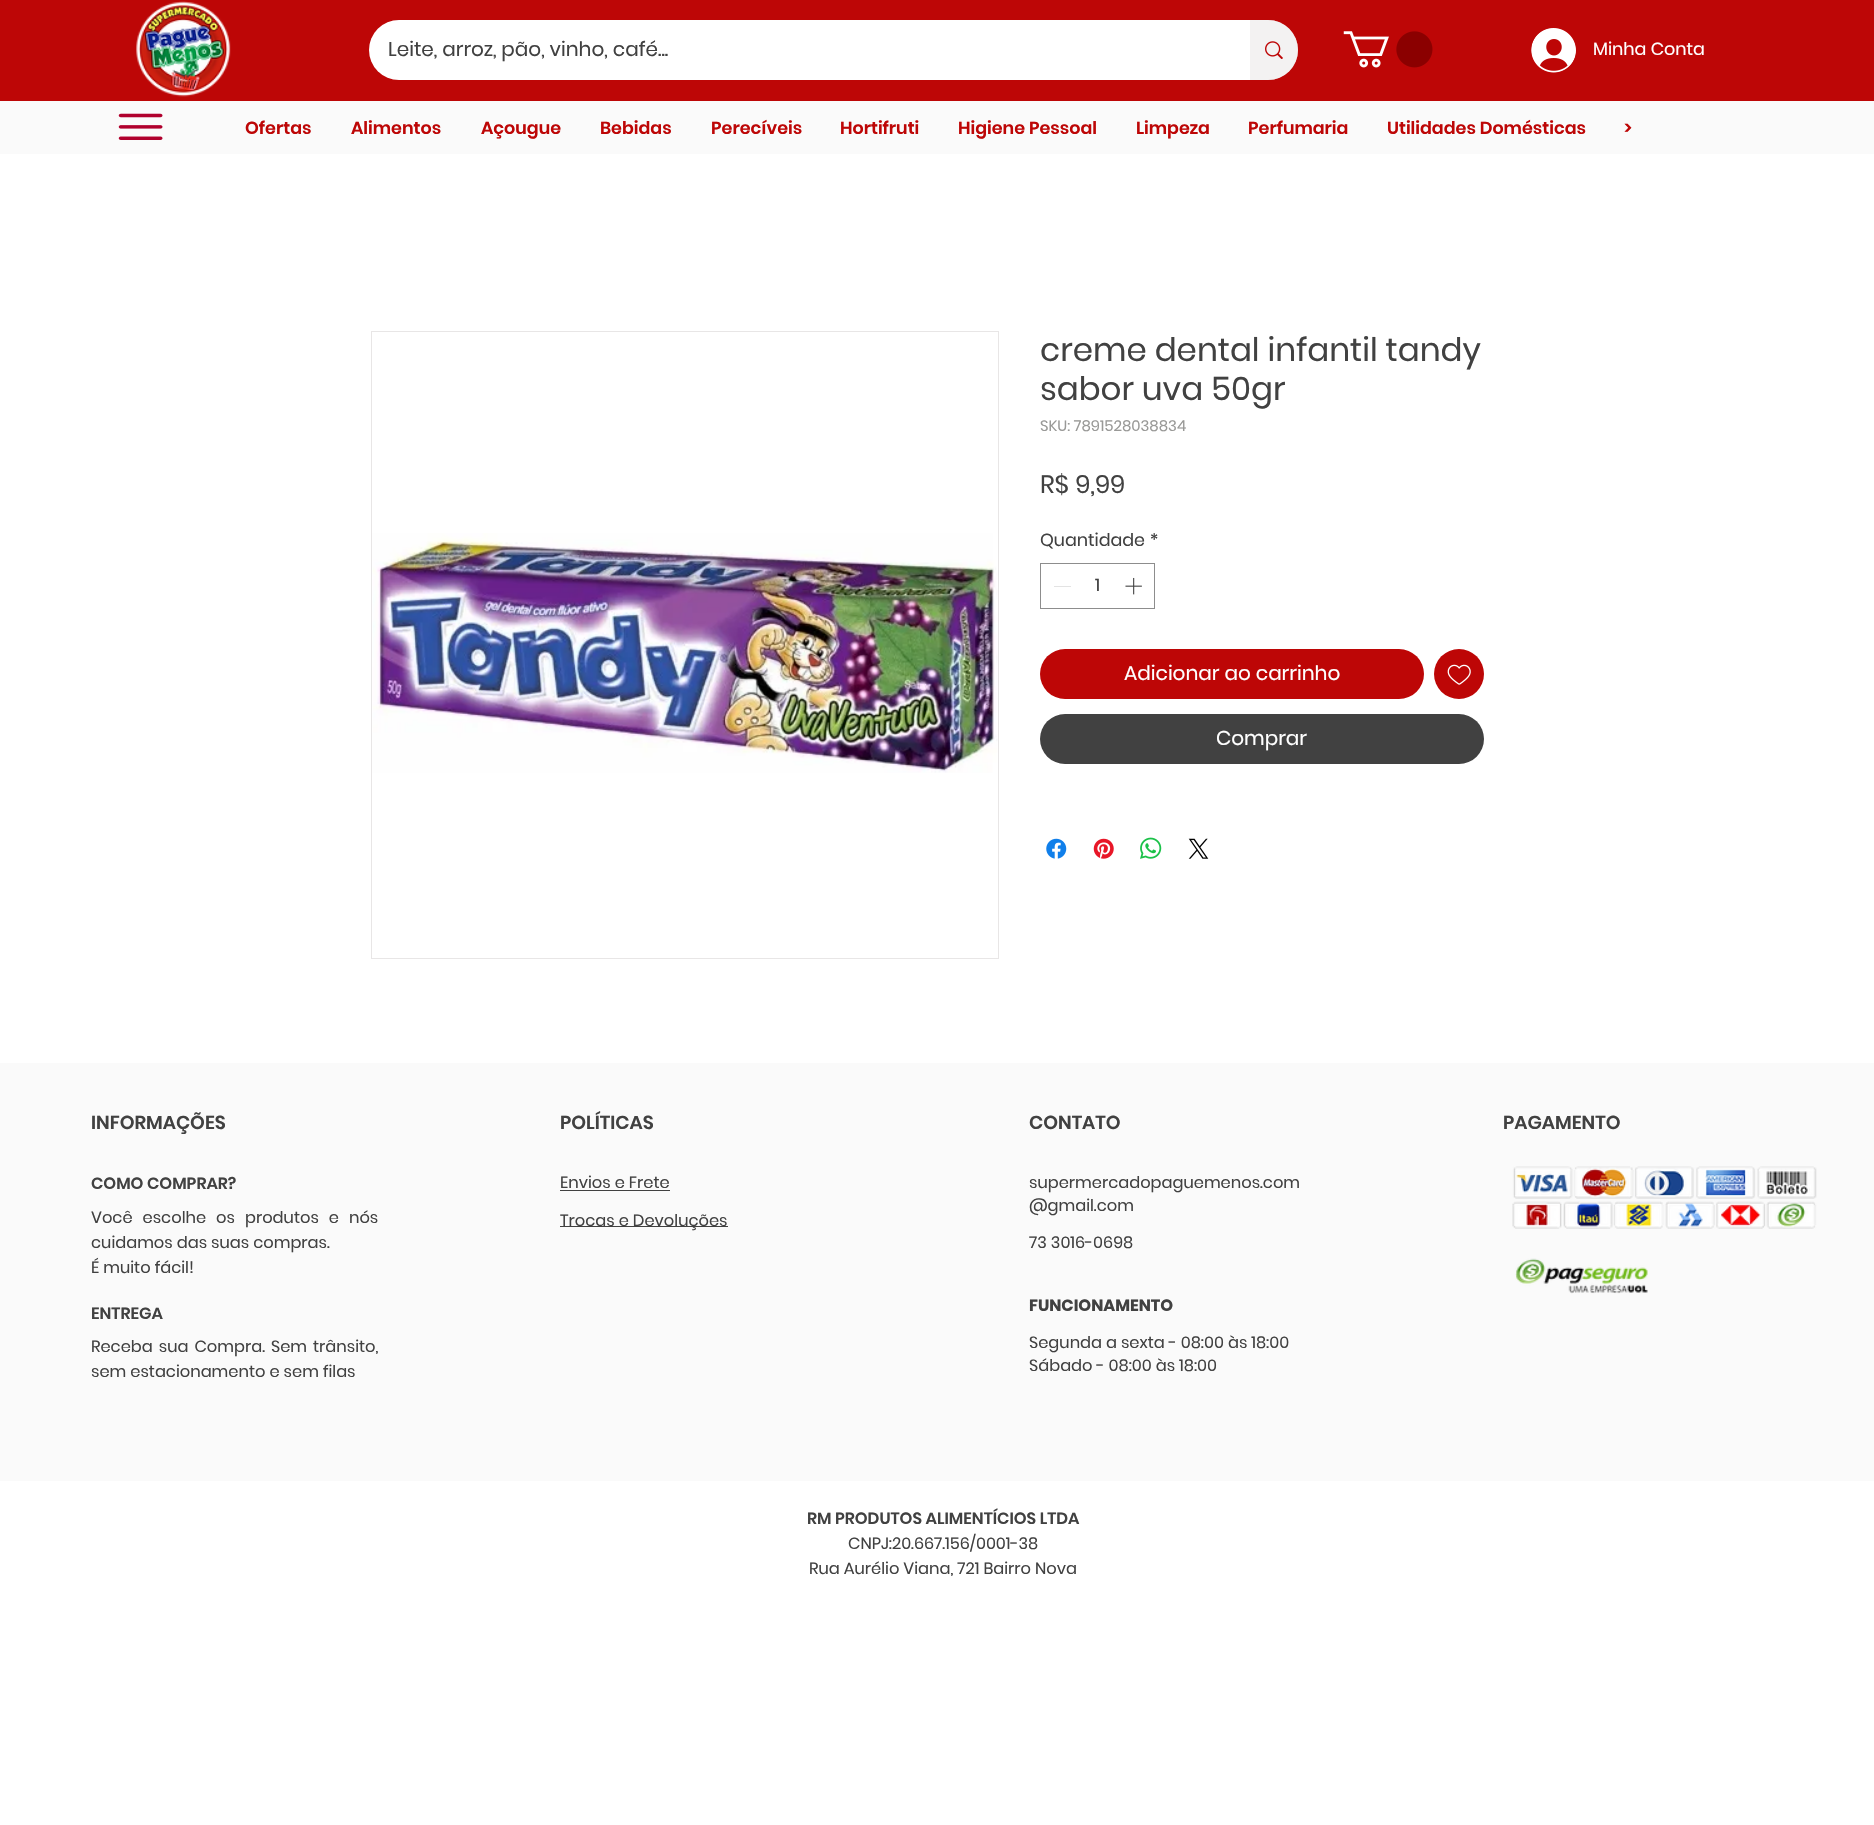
void draw(SkCanvas* canvas) {
    SkPaint paint;
    paint.setAntiAlias(true);
    auto face = [&](const char* family, int weight, float size, bool italic = false) {
        SkFontStyle style(weight, SkFontStyle::kNormal_Width,
            italic ? SkFontStyle::kItalic_Slant : SkFontStyle::kUpright_Slant);
        SkFont result(fontMgr->matchFamilyStyle(family, style), size);
        result.setSubpixel(true);
        return result;
    };
    auto write = [&](const char* s, float x, float y, const SkFont& font, SkColor color) {
        SkPaint ink(SkColor4f::FromColor(color));
        ink.setAntiAlias(true);
        canvas->drawString(s, x, y, font, ink);
    };
    auto writeSpaced = [&](const char* s, float x, float y, const SkFont& font, const SkPaint& ink, float letter, float word) {
        std::vector<SkGlyphID> glyphs(font.countText(s, strlen(s), SkTextEncoding::kUTF8));
        std::vector<float> xs(glyphs.size());
        font.textToGlyphs(s, strlen(s), SkTextEncoding::kUTF8, glyphs);
        font.getXPos(glyphs, xs, x);
        float extra = 0;
        for (size_t i = 0; i < glyphs.size(); i++) {
            xs[i] += extra;
            extra += letter + word * (glyphs[i] == font.unicharToGlyph(' '));
        }
        canvas->drawTextBlob(SkTextBlob::MakeFromPosHGlyphs(glyphs, xs, y, font), 0, 0, ink);
    };
    auto block = [&](float x, float y, float w, float h, SkColor color) {
        SkPaint ink(SkColor4f::FromColor(color));
        ink.setAntiAlias(true);
        canvas->drawRect(SkRect::MakeXYWH(x, y, w, h), ink);
    };
    auto card = [&](float x, float y, float w, float h, float radius, SkColor color) {
        SkPaint ink(SkColor4f::FromColor(color));
        ink.setAntiAlias(true);
        canvas->drawRoundRect(SkRect::MakeXYWH(x, y, w, h), radius, radius, ink);
    };
    auto paste = [&](const char* path, float x, float y, float w, float h) {
        auto image = SkImages::DeferredFromEncodedData(SkData::MakeFromFileName(path));
        canvas->drawImageRect(image, SkRect::MakeXYWH(x, y, w, h), SkSamplingOptions());
    };
    canvas->clear(SK_ColorWHITE);
    block(0, 0, 1874, 101, SkColorSetRGB(189, 6, 6));
    paste("pic1.png", 136, 1, 95, 96);
    card(369, 20, 929, 60, 30, SK_ColorWHITE);
    auto kFont1 = face("Poppins", 400, 20);
    write("Leite, arroz, pão, vinho, café...", 388, 56, kFont1, SkColorSetRGB(65, 65, 65));
    paint.setColor(SkColorSetARGB(130, 232, 230, 230));
    canvas->drawPath(SkPathBuilder().moveTo(1250, 20).lineTo(1268, 20).cubicTo(1284.5f, 20, 1298, 33.5f, 1298, 50).cubicTo(1298, 66.5f, 1284.5f, 80, 1268, 80).lineTo(1250, 80).close().detach(), paint);
    paste("pic2.png", 1265, 41, 18, 18);
    paste("pic3.png", 1343, 31, 90, 37);
    paste("pic4.png", 1531, 28, 45, 45);
    auto kFont2 = face("Poppins", 400, 17.5f);
    write("Minha Conta", 1593, 55, kFont2, SK_ColorWHITE);
    block(0, 101, 1874, 53, SkColorSetRGB(250, 250, 250));
    paste("pic5.png", 118, 113, 45, 27);
    auto kFont3 = face("Poppins", 600, 17.5f);
    write("Ofertas", 245, 134, kFont3, SkColorSetRGB(189, 6, 6));
    write("Alimentos", 351, 134, kFont3, SkColorSetRGB(189, 6, 6));
    write("Açougue", 481, 134, kFont3, SkColorSetRGB(189, 6, 6));
    write("Bebidas", 600, 134, kFont3, SkColorSetRGB(189, 6, 6));
    write("Perecíveis", 711, 134, kFont3, SkColorSetRGB(189, 6, 6));
    write("Hortifruti", 840, 134, kFont3, SkColorSetRGB(189, 6, 6));
    write("Higiene Pessoal", 958, 134, kFont3, SkColorSetRGB(189, 6, 6));
    write("Limpeza", 1136, 134, kFont3, SkColorSetRGB(189, 6, 6));
    write("Perfumaria", 1248, 134, kFont3, SkColorSetRGB(189, 6, 6));
    write("Utilidades Domésticas", 1387, 134, kFont3, SkColorSetRGB(189, 6, 6));
    write(">", 1624, 134, kFont3, SkColorSetRGB(189, 6, 6));
    paint.setStyle(SkPaint::kStroke_Style);
    paint.setStrokeWidth(1);
    paint.setColor(SkColorSetRGB(232, 230, 230));
    canvas->drawRect(SkRect::MakeXYWH(371.5f, 331.5f, 627, 627), paint);
    paste("pic6.png", 372, 533, 626, 240);
    auto kFont4 = face("Poppins", 400, 32.5f);
    write("creme dental infantil tandy", 1040, 361, kFont4, SkColorSetRGB(65, 65, 65));
    write("sabor uva 50gr", 1040, 400, kFont4, SkColorSetRGB(65, 65, 65));
    auto kFont5 = face("Poppins", 400, 15);
    write("SKU: 7891528038834", 1040, 431, kFont5, SkColorSetRGB(153, 153, 151));
    auto kFont6 = face("Poppins", 400, 25);
    write("R$ 9,99", 1040, 493, kFont6, SkColorSetRGB(65, 65, 65));
    write("Quantidade", 1040, 546, kFont2, SkColorSetRGB(65, 65, 65));
    write("*", 1150, 546, kFont2, SkColorSetRGB(65, 65, 65));
    paint.setColor(SkColorSetRGB(141, 141, 141));
    canvas->drawRect(SkRect::MakeXYWH(1040.5f, 563.5f, 114, 45), paint);
    block(1054, 586, 17, 1, SkColorSetRGB(227, 227, 227));
    write("1", 1095, 591, kFont2, SkColorSetRGB(65, 65, 65));
    paste("pic7.png", 1125, 577, 17, 18);
    card(1040, 649, 384, 50, 25, SkColorSetRGB(189, 6, 6));
    write("Adicionar ao carrinho", 1124, 680, kFont1, SK_ColorWHITE);
    paint.setStyle(SkPaint::kFill_Style);
    paint.setColor(SkColorSetRGB(189, 6, 6));
    canvas->drawCircle(1459, 674, 25, paint);
    paste("pic8.png", 1447, 664, 24, 21);
    card(1040, 714, 444, 50, 25, SkColorSetRGB(65, 65, 65));
    write("Comprar", 1216, 745, kFont1, SK_ColorWHITE);
    paste("pic9.png", 1046, 838, 21, 21);
    paste("pic10.png", 1093, 838, 21, 21);
    paste("pic11.png", 1140, 837, 22, 22);
    paste("pic12.png", 1188, 838, 21, 21);
    block(0, 1063, 1874, 418, SkColorSetRGB(250, 250, 250));
    auto kFont7 = face("Poppins", 600, 18.75f);
    write("INFORMAÇÕES", 91, 1129, kFont7, SkColorSetRGB(65, 65, 65));
    auto kFont8 = face("Poppins", 600, 16.25f);
    write("COMO COMPRAR?", 91, 1189, kFont8, SkColorSetRGB(65, 65, 65));
    auto kFont9 = face("Poppins", 400, 16.25f);
    paint.setColor(SkColorSetRGB(65, 65, 65));
    writeSpaced("Você escolhe os produtos e nós", 91, 1223, kFont9, paint, 0, 6);
    write("cuidamos das suas compras.", 91, 1248, kFont9, SkColorSetRGB(65, 65, 65));
    write("É muito fácil!", 91, 1273, kFont9, SkColorSetRGB(65, 65, 65));
    write("ENTREGA", 91, 1319, kFont8, SkColorSetRGB(65, 65, 65));
    writeSpaced("Receba sua Compra. Sem trânsito,", 91, 1352, kFont9, paint, 0, 2);
    write("sem estacionamento e sem filas", 91, 1377, kFont9, SkColorSetRGB(65, 65, 65));
    write("POLÍTICAS", 560, 1129, kFont7, SkColorSetRGB(65, 65, 65));
    write("Envios e Frete", 560, 1188, kFont9, SkColorSetRGB(65, 65, 65));
    block(560, 1190, 110, 1, SkColorSetRGB(65, 65, 65));
    block(560, 1226, 168, 1, SkColorSetRGB(65, 65, 65));
    write("Trocas e Devoluções", 560, 1226, kFont9, SkColorSetRGB(65, 65, 65));
    write("CONTATO", 1029, 1129, kFont7, SkColorSetRGB(65, 65, 65));
    write("supermercadopaguemenos.com", 1029, 1188, kFont9, SkColorSetRGB(65, 65, 65));
    write("@gmail.com", 1029, 1211, kFont9, SkColorSetRGB(65, 65, 65));
    write("73 3016-0698", 1029, 1248, kFont9, SkColorSetRGB(65, 65, 65));
    auto kFont10 = face("Poppins", 700, 16.25f);
    write("FUNCIONAMENTO", 1029, 1311, kFont10, SkColorSetRGB(65, 65, 65));
    write("Segunda a sexta - 08:00 às 18:00", 1029, 1348, kFont9, SkColorSetRGB(65, 65, 65));
    write("Sábado - 08:00 às 18:00", 1029, 1371, kFont9, SkColorSetRGB(65, 65, 65));
    write("PAGAMENTO", 1503, 1129, kFont7, SkColorSetRGB(65, 65, 65));
    paste("pic13.png", 1512, 1166, 305, 63);
    paste("pic14.png", 1515, 1258, 133, 36);
    write("RM PRODUTOS ALIMENTÍCIOS LTDA", 807, 1524, kFont8, SkColorSetRGB(65, 65, 65));
    write("CNPJ:20.667.156/0001-38", 848, 1549, kFont9, SkColorSetRGB(65, 65, 65));
    write("Rua Aurélio Viana, 721 Bairro Nova", 809, 1574, kFont9, SkColorSetRGB(65, 65, 65));
}
